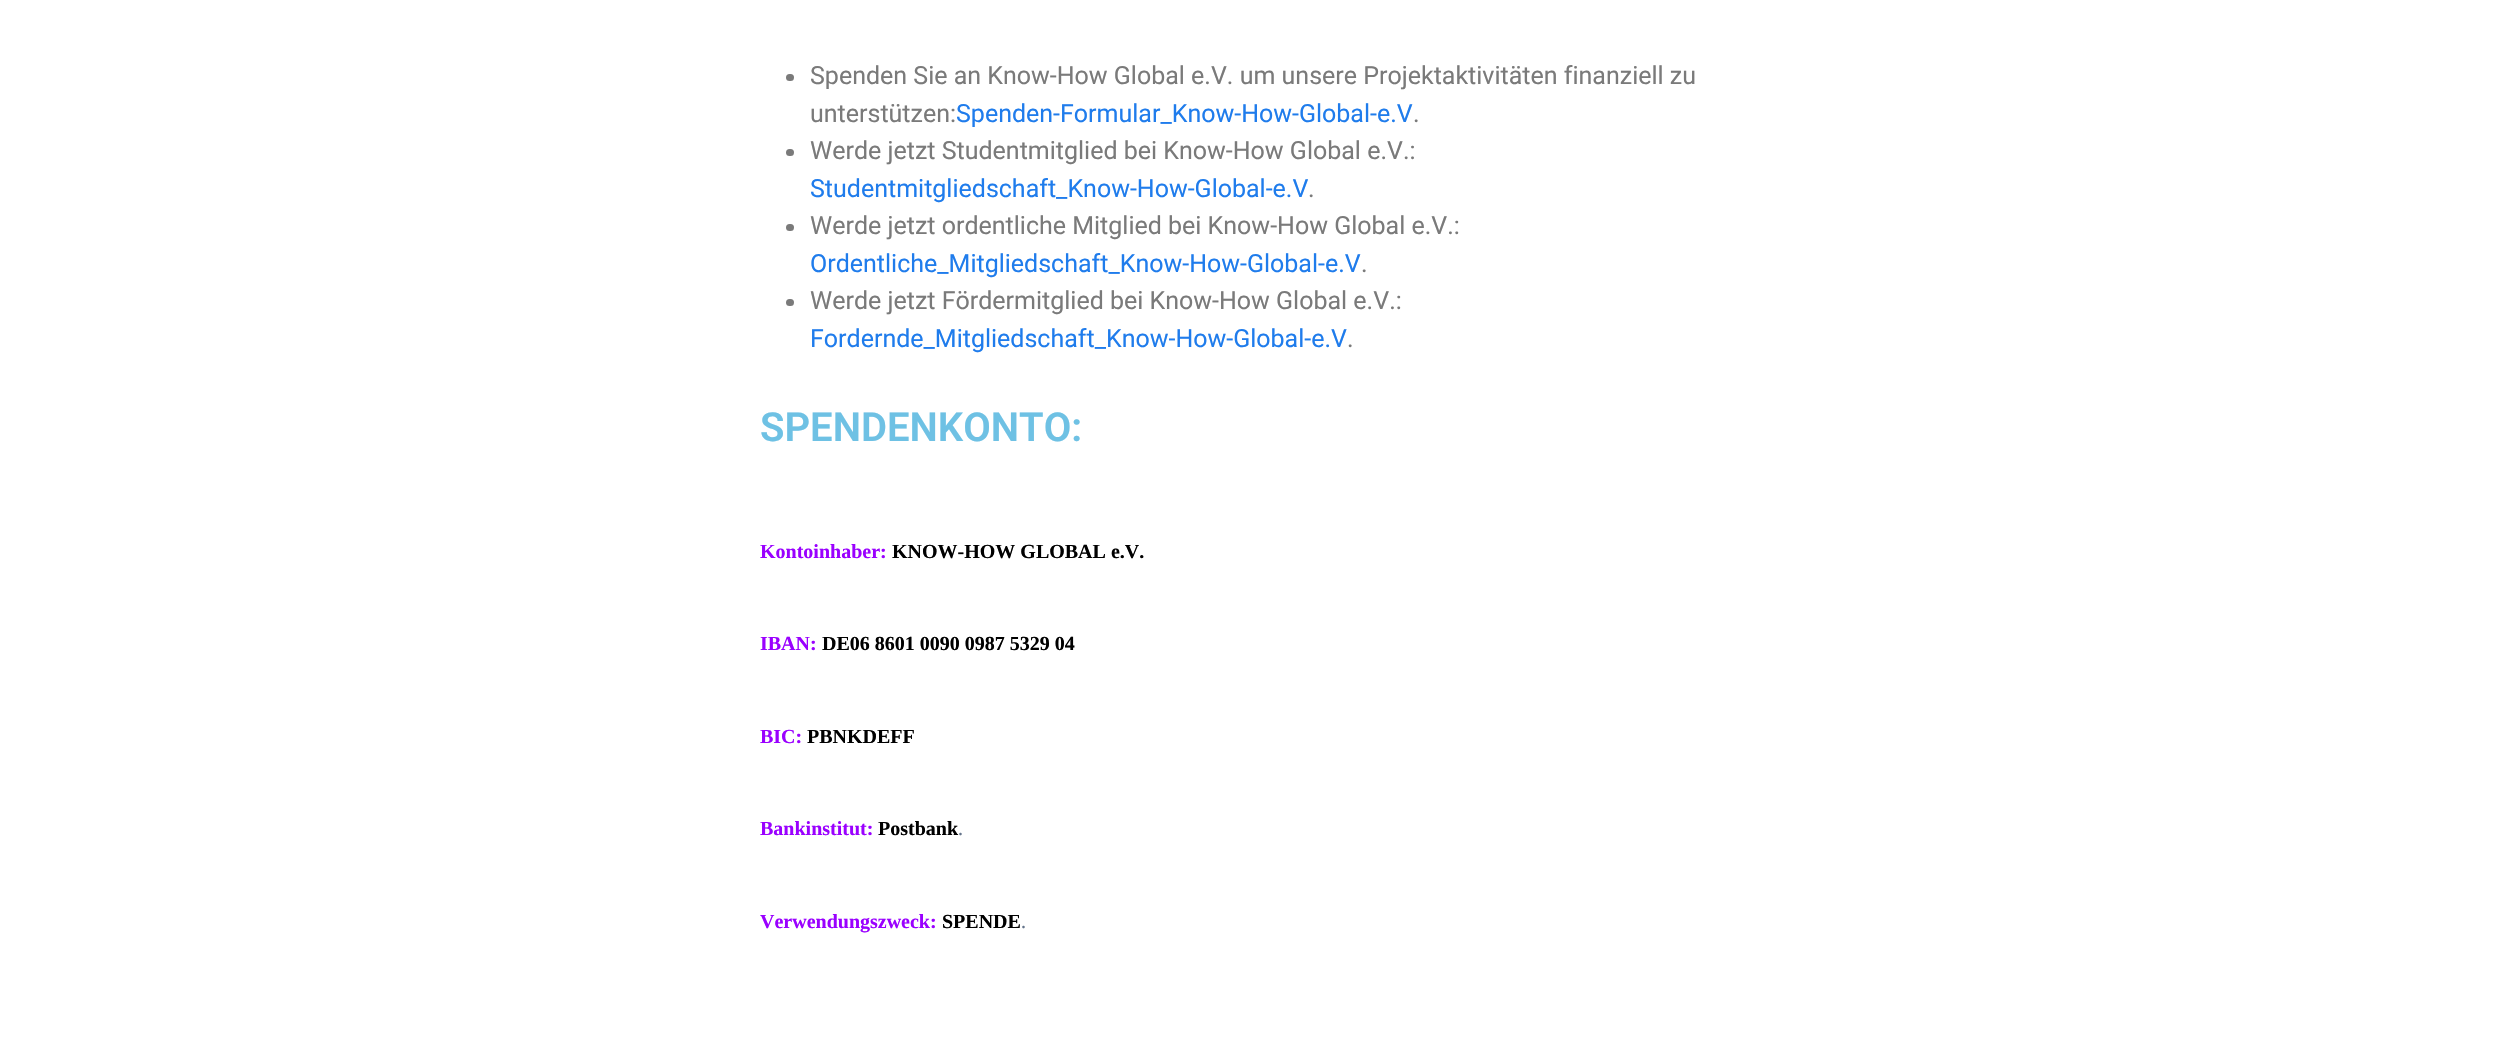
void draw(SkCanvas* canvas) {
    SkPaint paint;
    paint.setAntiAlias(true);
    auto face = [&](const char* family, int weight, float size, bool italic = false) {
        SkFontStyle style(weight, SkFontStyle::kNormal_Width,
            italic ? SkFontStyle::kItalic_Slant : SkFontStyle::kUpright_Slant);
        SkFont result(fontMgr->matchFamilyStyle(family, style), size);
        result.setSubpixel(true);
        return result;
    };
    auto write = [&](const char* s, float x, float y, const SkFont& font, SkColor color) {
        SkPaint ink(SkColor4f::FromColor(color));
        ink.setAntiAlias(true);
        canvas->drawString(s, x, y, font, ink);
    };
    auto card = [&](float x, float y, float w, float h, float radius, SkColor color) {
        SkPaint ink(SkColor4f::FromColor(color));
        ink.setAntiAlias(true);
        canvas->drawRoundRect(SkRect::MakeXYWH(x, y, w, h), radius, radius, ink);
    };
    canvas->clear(SK_ColorWHITE);
    card(786, 74, 8, 7, 3.5f, SkColorSetRGB(122, 122, 122));
    auto kFont1 = face("Roboto", 400, 25);
    write("Spenden Sie an Know-How Global e.V. um unsere Projektaktivitäten finanziell zu", 810, 84, kFont1, SkColorSetRGB(122, 122, 122));
    write("unterstützen:", 810, 122, kFont1, SkColorSetRGB(122, 122, 122));
    write("Spenden-Formular_Know-How-Global-e.V", 956, 122, kFont1, SkColorSetRGB(31, 124, 236));
    write(".", 1413, 122, kFont1, SkColorSetRGB(122, 122, 122));
    card(786, 149, 8, 7, 3.5f, SkColorSetRGB(122, 122, 122));
    write("Werde jetzt Studentmitglied bei Know-How Global e.V.:", 810, 159, kFont1, SkColorSetRGB(122, 122, 122));
    write("Studentmitgliedschaft_Know-How-Global-e.V", 810, 197, kFont1, SkColorSetRGB(31, 124, 236));
    write(".", 1308, 197, kFont1, SkColorSetRGB(122, 122, 122));
    card(786, 224, 8, 7, 3.5f, SkColorSetRGB(122, 122, 122));
    write("Werde jetzt ordentliche Mitglied bei Know-How Global e.V.:", 810, 234, kFont1, SkColorSetRGB(122, 122, 122));
    write("Ordentliche_Mitgliedschaft_Know-How-Global-e.V", 810, 272, kFont1, SkColorSetRGB(31, 124, 236));
    write(".", 1361, 272, kFont1, SkColorSetRGB(122, 122, 122));
    card(786, 299, 8, 7, 3.5f, SkColorSetRGB(122, 122, 122));
    write("Werde jetzt Fördermitglied bei Know-How Global e.V.:", 810, 309, kFont1, SkColorSetRGB(122, 122, 122));
    write("Fordernde_Mitgliedschaft_Know-How-Global-e.V", 810, 347, kFont1, SkColorSetRGB(31, 124, 236));
    write(".", 1347, 347, kFont1, SkColorSetRGB(122, 122, 122));
    auto kFont2 = face("Roboto", 600, 40);
    write("SPENDENKONTO:", 760, 441, kFont2, SkColorSetRGB(110, 193, 228));
    auto kFont3 = face("Liberation Serif", 700, 20);
    write("Kontoinhaber:", 760, 558, kFont3, SkColorSetRGB(154, 0, 255));
    write("KNOW-HOW GLOBAL e.V.", 892, 558, kFont3, SK_ColorBLACK);
    write("IBAN:", 760, 650, kFont3, SkColorSetRGB(154, 0, 255));
    write("DE06 8601 0090 0987 5329 04", 822, 650, kFont3, SK_ColorBLACK);
    write("BIC:", 760, 743, kFont3, SkColorSetRGB(154, 0, 255));
    write("PBNKDEFF", 807, 743, kFont3, SK_ColorBLACK);
    write("Bankinstitut:", 760, 835, kFont3, SkColorSetRGB(154, 0, 255));
    write("Postbank", 878, 835, kFont3, SK_ColorBLACK);
    auto kFont4 = face("Source Sans 3", 400, 20);
    write(".", 958, 835, kFont4, SkColorSetRGB(100, 116, 139));
    write("Verwendungszweck:", 760, 928, kFont3, SkColorSetRGB(154, 0, 255));
    write("SPENDE", 942, 928, kFont3, SK_ColorBLACK);
    write(".", 1021, 928, kFont4, SkColorSetRGB(100, 116, 139));
}
